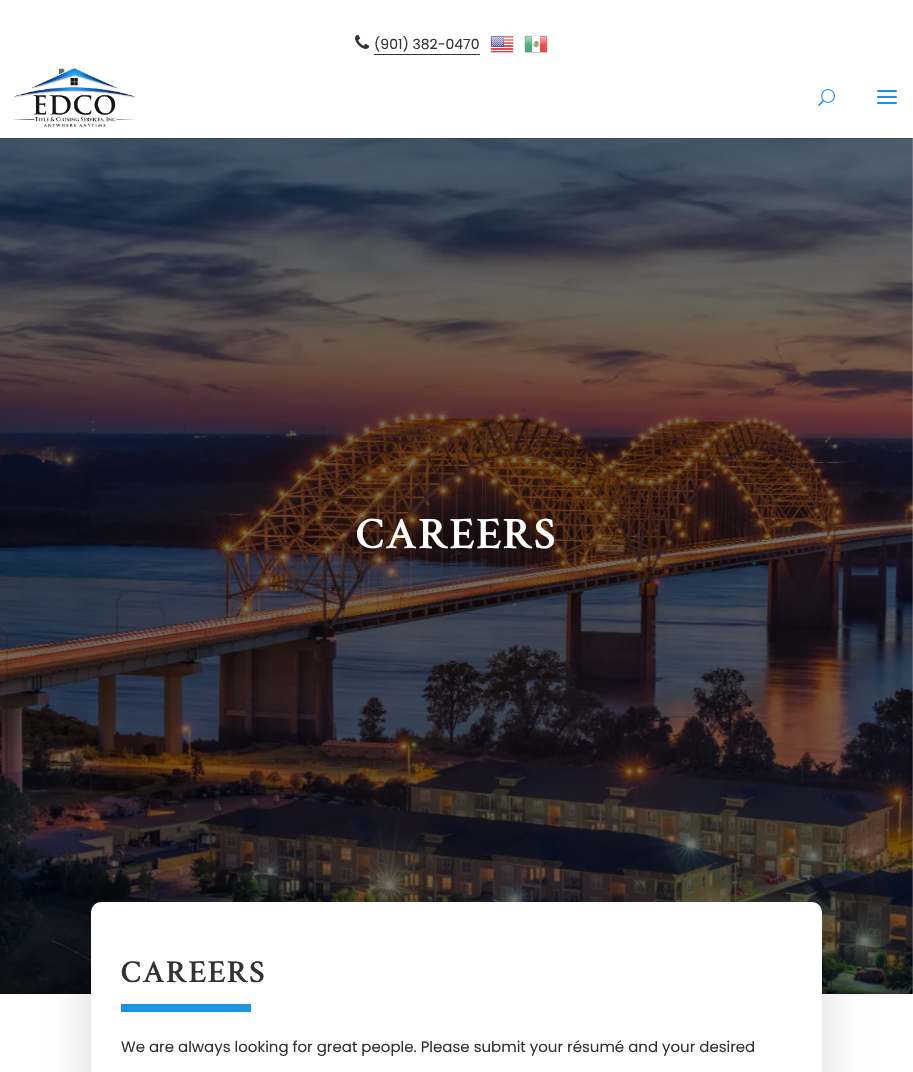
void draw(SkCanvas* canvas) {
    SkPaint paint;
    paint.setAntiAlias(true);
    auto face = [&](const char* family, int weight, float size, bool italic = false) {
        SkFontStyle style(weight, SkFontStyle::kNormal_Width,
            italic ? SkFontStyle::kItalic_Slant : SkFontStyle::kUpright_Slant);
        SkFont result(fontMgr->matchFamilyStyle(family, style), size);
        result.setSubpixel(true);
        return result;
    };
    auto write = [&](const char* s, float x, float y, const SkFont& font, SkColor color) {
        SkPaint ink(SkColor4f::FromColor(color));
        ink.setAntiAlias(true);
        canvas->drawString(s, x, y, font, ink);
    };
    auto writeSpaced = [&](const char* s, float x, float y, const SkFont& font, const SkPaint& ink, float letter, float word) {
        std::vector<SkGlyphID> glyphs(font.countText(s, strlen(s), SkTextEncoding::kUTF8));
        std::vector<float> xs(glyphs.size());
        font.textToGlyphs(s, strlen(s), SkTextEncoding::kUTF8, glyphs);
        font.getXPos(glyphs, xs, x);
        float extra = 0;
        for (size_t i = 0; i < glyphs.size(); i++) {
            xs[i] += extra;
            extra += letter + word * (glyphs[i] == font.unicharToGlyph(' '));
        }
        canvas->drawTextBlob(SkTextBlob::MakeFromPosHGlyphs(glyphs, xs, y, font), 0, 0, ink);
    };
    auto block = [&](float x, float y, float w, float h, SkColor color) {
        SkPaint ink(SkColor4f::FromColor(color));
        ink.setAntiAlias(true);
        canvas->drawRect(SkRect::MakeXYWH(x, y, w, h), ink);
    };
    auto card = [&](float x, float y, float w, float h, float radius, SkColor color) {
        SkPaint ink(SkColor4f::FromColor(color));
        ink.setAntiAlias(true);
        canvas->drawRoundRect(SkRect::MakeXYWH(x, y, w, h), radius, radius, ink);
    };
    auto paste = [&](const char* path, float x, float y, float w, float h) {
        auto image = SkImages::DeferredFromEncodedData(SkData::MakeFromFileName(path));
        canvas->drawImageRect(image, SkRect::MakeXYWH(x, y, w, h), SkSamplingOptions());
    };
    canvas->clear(SK_ColorWHITE);
    paste("pic1.png", 355, 34, 15, 15);
    auto kFont1 = face("Poppins", 400, 14);
    write("(901) 382-0470", 374, 49, kFont1, SkColorSetRGB(51, 51, 51));
    block(374, 54, 106, 1, SkColorSetRGB(51, 51, 51));
    paste("pic2.png", 490, 35, 24, 19);
    paste("pic3.png", 524, 35, 24, 19);
    paste("pic7.png", 0, 138, 913, 856);
    block(0, 138, 913, 1, SkColorSetARGB(26, 0, 0, 0));
    paste("pic4.png", 13, 68, 124, 59);
    paste("pic5.png", 818, 89, 17, 18);
    paste("pic6.png", 877, 90, 20, 14);
    auto kFont2 = face("Crimson Text", 600, 45);
    paint.setColor(SK_ColorWHITE);
    writeSpaced("CAREERS", 356, 548, kFont2, paint, 1, 0);
    paint.setColor(SkColorSetARGB(26, 0, 0, 0));
    paint.setMaskFilter(SkMaskFilter::MakeBlur(kNormal_SkBlurStyle, 17.5f));
    canvas->drawRoundRect(SkRect::MakeXYWH(81, 894, 751, 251), 20, 20, paint);
    paint.setMaskFilter(nullptr);
    card(91, 902, 731, 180, 10, SK_ColorWHITE);
    auto kFont3 = face("Crimson Text", 600, 32);
    paint.setColor(SkColorSetRGB(51, 51, 51));
    writeSpaced("CAREERS", 121, 982, kFont3, paint, 1, 0);
    block(121, 1004, 130, 8, SkColorSetRGB(29, 146, 224));
    auto kFont4 = face("Poppins", 400, 15);
    write("We are always looking for great people. Please submit your résumé and your desired", 121, 1052, kFont4, SkColorSetRGB(51, 51, 51));
}
